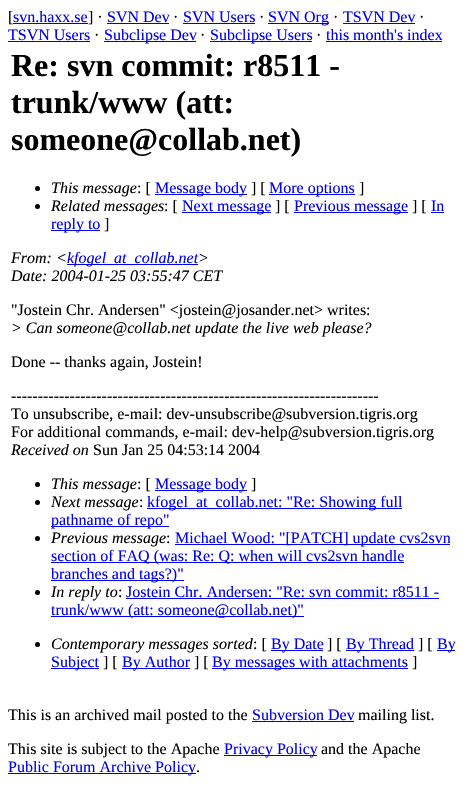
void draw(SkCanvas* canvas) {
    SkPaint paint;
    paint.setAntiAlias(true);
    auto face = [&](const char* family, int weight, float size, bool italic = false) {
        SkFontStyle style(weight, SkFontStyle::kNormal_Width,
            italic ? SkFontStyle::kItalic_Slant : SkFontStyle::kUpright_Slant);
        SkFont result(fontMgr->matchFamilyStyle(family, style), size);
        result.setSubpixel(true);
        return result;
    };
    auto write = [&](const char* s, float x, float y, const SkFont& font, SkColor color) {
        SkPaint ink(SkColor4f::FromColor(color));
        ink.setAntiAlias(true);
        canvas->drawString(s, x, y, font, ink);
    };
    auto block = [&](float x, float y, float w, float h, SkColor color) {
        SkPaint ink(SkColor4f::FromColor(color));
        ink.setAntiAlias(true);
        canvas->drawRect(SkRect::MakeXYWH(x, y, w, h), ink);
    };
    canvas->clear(SK_ColorWHITE);
    auto kFont1 = face("Liberation Serif", 400, 16);
    write("[", 8, 22, kFont1, SK_ColorBLACK);
    write("svn.haxx.se", 13, 22, kFont1, SkColorSetRGB(0, 0, 238));
    block(13, 23, 75, 1, SkColorSetRGB(0, 0, 238));
    write("] ·", 88, 22, kFont1, SK_ColorBLACK);
    write("SVN Dev", 107, 22, kFont1, SkColorSetRGB(0, 0, 238));
    block(107, 23, 62, 1, SkColorSetRGB(0, 0, 238));
    write("·", 173, 22, kFont1, SK_ColorBLACK);
    write("SVN Users", 183, 22, kFont1, SkColorSetRGB(0, 0, 238));
    block(183, 23, 72, 1, SkColorSetRGB(0, 0, 238));
    write("·", 259, 22, kFont1, SK_ColorBLACK);
    block(268, 23, 61, 1, SkColorSetRGB(0, 0, 238));
    write("SVN Org", 268, 22, kFont1, SkColorSetRGB(0, 0, 238));
    write("·", 333, 22, kFont1, SK_ColorBLACK);
    write("TSVN Dev", 343, 22, kFont1, SkColorSetRGB(0, 0, 238));
    block(343, 23, 72, 1, SkColorSetRGB(0, 0, 238));
    write("·", 419, 22, kFont1, SK_ColorBLACK);
    write("TSVN Users", 8, 40, kFont1, SkColorSetRGB(0, 0, 238));
    block(8, 41, 82, 1, SkColorSetRGB(0, 0, 238));
    write("·", 94, 40, kFont1, SK_ColorBLACK);
    block(104, 41, 92, 1, SkColorSetRGB(0, 0, 238));
    write("Subclipse Dev", 104, 40, kFont1, SkColorSetRGB(0, 0, 238));
    write("·", 200, 40, kFont1, SK_ColorBLACK);
    block(210, 41, 102, 1, SkColorSetRGB(0, 0, 238));
    write("Subclipse Users", 210, 40, kFont1, SkColorSetRGB(0, 0, 238));
    write("·", 316, 40, kFont1, SK_ColorBLACK);
    write("this month's index", 326, 40, kFont1, SkColorSetRGB(0, 0, 238));
    block(326, 41, 116, 1, SkColorSetRGB(0, 0, 238));
    auto kFont2 = face("Liberation Serif", 700, 32);
    write("Re: svn commit: r8511 -", 11, 76, kFont2, SK_ColorBLACK);
    write("trunk/www (att:", 11, 113, kFont2, SK_ColorBLACK);
    write("someone@collab.net)", 11, 150, kFont2, SK_ColorBLACK);
    paint.setColor(SK_ColorBLACK);
    canvas->drawCircle(37.5f, 188.5f, 2.5f, paint);
    auto kFont3 = face("Liberation Serif", 400, 16, true);
    write("This message", 51, 193, kFont3, SK_ColorBLACK);
    write(": [", 137, 193, kFont1, SK_ColorBLACK);
    block(155, 194, 92, 1, SkColorSetRGB(0, 0, 238));
    write("Message body", 155, 193, kFont1, SkColorSetRGB(0, 0, 238));
    write("] [", 251, 193, kFont1, SK_ColorBLACK);
    block(269, 194, 86, 1, SkColorSetRGB(0, 0, 238));
    write("More options", 269, 193, kFont1, SkColorSetRGB(0, 0, 238));
    write("]", 359, 193, kFont1, SK_ColorBLACK);
    canvas->drawCircle(37.5f, 206.5f, 2.5f, paint);
    write("Related messages", 51, 211, kFont3, SK_ColorBLACK);
    write(": [", 164, 211, kFont1, SK_ColorBLACK);
    block(182, 212, 89, 1, SkColorSetRGB(0, 0, 238));
    write("Next message", 182, 211, kFont1, SkColorSetRGB(0, 0, 238));
    write("] [", 275, 211, kFont1, SK_ColorBLACK);
    block(294, 212, 114, 1, SkColorSetRGB(0, 0, 238));
    write("Previous message", 294, 211, kFont1, SkColorSetRGB(0, 0, 238));
    write("] [", 412, 211, kFont1, SK_ColorBLACK);
    write("In", 431, 211, kFont1, SkColorSetRGB(0, 0, 238));
    block(431, 212, 13, 1, SkColorSetRGB(0, 0, 238));
    block(51, 230, 49, 1, SkColorSetRGB(0, 0, 238));
    write("reply to", 51, 229, kFont1, SkColorSetRGB(0, 0, 238));
    write("]", 104, 229, kFont1, SK_ColorBLACK);
    write("From: <", 11, 263, kFont3, SK_ColorBLACK);
    block(67, 264, 131, 1, SkColorSetRGB(0, 0, 238));
    write("kfogel_at_collab.net", 67, 263, kFont3, SkColorSetRGB(0, 0, 238));
    write(">", 198, 263, kFont3, SK_ColorBLACK);
    write("Date: 2004-01-25 03:55:47 CET", 11, 281, kFont3, SK_ColorBLACK);
    write("\"Jostein Chr. Andersen\" <jostein@josander.net> writes:", 11, 315, kFont1, SK_ColorBLACK);
    write("> Can someone@collab.net update the live web please?", 11, 333, kFont3, SK_ColorBLACK);
    write("Done -- thanks again, Jostein!", 11, 367, kFont1, SK_ColorBLACK);
    write("---------------------------------------------------------------------", 11, 401, kFont1, SK_ColorBLACK);
    write("To unsubscribe, e-mail: dev-unsubscribe@subversion.tigris.org", 11, 419, kFont1, SK_ColorBLACK);
    write("For additional commands, e-mail: dev-help@subversion.tigris.org", 11, 437, kFont1, SK_ColorBLACK);
    write("Received on", 11, 455, kFont3, SK_ColorBLACK);
    write("Sun Jan 25 04:53:14 2004", 93, 455, kFont1, SK_ColorBLACK);
    canvas->drawCircle(37.5f, 484.5f, 2.5f, paint);
    write("This message", 51, 489, kFont3, SK_ColorBLACK);
    write(": [", 137, 489, kFont1, SK_ColorBLACK);
    block(155, 490, 92, 1, SkColorSetRGB(0, 0, 238));
    write("Message body", 155, 489, kFont1, SkColorSetRGB(0, 0, 238));
    write("]", 251, 489, kFont1, SK_ColorBLACK);
    canvas->drawCircle(37.5f, 502.5f, 2.5f, paint);
    write("Next message", 51, 507, kFont3, SK_ColorBLACK);
    write(":", 139, 507, kFont1, SK_ColorBLACK);
    block(147, 508, 255, 1, SkColorSetRGB(0, 0, 238));
    write("kfogel_at_collab.net: \"Re: Showing full", 147, 507, kFont1, SkColorSetRGB(0, 0, 238));
    block(51, 526, 118, 1, SkColorSetRGB(0, 0, 238));
    write("pathname of repo\"", 51, 525, kFont1, SkColorSetRGB(0, 0, 238));
    canvas->drawCircle(37.5f, 538.5f, 2.5f, paint);
    write("Previous message", 51, 543, kFont3, SK_ColorBLACK);
    write(":", 166, 543, kFont1, SK_ColorBLACK);
    block(175, 544, 275, 1, SkColorSetRGB(0, 0, 238));
    write("Michael Wood: \"[PATCH] update cvs2svn", 175, 543, kFont1, SkColorSetRGB(0, 0, 238));
    block(51, 562, 353, 1, SkColorSetRGB(0, 0, 238));
    write("section of FAQ (was: Re: Q: when will cvs2svn handle", 51, 561, kFont1, SkColorSetRGB(0, 0, 238));
    block(51, 580, 133, 1, SkColorSetRGB(0, 0, 238));
    write("branches and tags?)\"", 51, 579, kFont1, SkColorSetRGB(0, 0, 238));
    canvas->drawCircle(37.5f, 592.5f, 2.5f, paint);
    write("In reply to", 51, 597, kFont3, SK_ColorBLACK);
    write(":", 118, 597, kFont1, SK_ColorBLACK);
    write("Jostein Chr. Andersen: \"Re: svn commit: r8511 -", 126, 597, kFont1, SkColorSetRGB(0, 0, 238));
    block(126, 598, 313, 1, SkColorSetRGB(0, 0, 238));
    block(51, 616, 253, 1, SkColorSetRGB(0, 0, 238));
    write("trunk/www (att: someone@collab.net)\"", 51, 615, kFont1, SkColorSetRGB(0, 0, 238));
    canvas->drawCircle(37.5f, 644.5f, 2.5f, paint);
    write("Contemporary messages sorted", 51, 649, kFont3, SK_ColorBLACK);
    write(": [", 253, 649, kFont1, SK_ColorBLACK);
    block(271, 650, 52, 1, SkColorSetRGB(0, 0, 238));
    write("By Date", 271, 649, kFont1, SkColorSetRGB(0, 0, 238));
    write("] [", 327, 649, kFont1, SK_ColorBLACK);
    block(346, 650, 68, 1, SkColorSetRGB(0, 0, 238));
    write("By Thread", 346, 649, kFont1, SkColorSetRGB(0, 0, 238));
    write("] [", 418, 649, kFont1, SK_ColorBLACK);
    block(437, 650, 18, 1, SkColorSetRGB(0, 0, 238));
    write("By", 437, 649, kFont1, SkColorSetRGB(0, 0, 238));
    block(51, 668, 48, 1, SkColorSetRGB(0, 0, 238));
    write("Subject", 51, 667, kFont1, SkColorSetRGB(0, 0, 238));
    write("] [", 103, 667, kFont1, SK_ColorBLACK);
    block(122, 668, 68, 1, SkColorSetRGB(0, 0, 238));
    write("By Author", 122, 667, kFont1, SkColorSetRGB(0, 0, 238));
    write("] [", 194, 667, kFont1, SK_ColorBLACK);
    block(212, 668, 196, 1, SkColorSetRGB(0, 0, 238));
    write("By messages with attachments", 212, 667, kFont1, SkColorSetRGB(0, 0, 238));
    write("]", 412, 667, kFont1, SK_ColorBLACK);
    write("This is an archived mail posted to the", 8, 720, kFont1, SK_ColorBLACK);
    write("Subversion Dev", 252, 720, kFont1, SkColorSetRGB(0, 0, 238));
    block(252, 721, 102, 1, SkColorSetRGB(0, 0, 238));
    write("mailing list.", 358, 720, kFont1, SK_ColorBLACK);
    write("This site is subject to the Apache", 8, 754, kFont1, SK_ColorBLACK);
    block(224, 755, 93, 1, SkColorSetRGB(0, 0, 238));
    write("Privacy Policy", 224, 754, kFont1, SkColorSetRGB(0, 0, 238));
    write("and the Apache", 321, 754, kFont1, SK_ColorBLACK);
    block(8, 773, 188, 1, SkColorSetRGB(0, 0, 238));
    write("Public Forum Archive Policy", 8, 772, kFont1, SkColorSetRGB(0, 0, 238));
    write(".", 196, 772, kFont1, SK_ColorBLACK);
}
